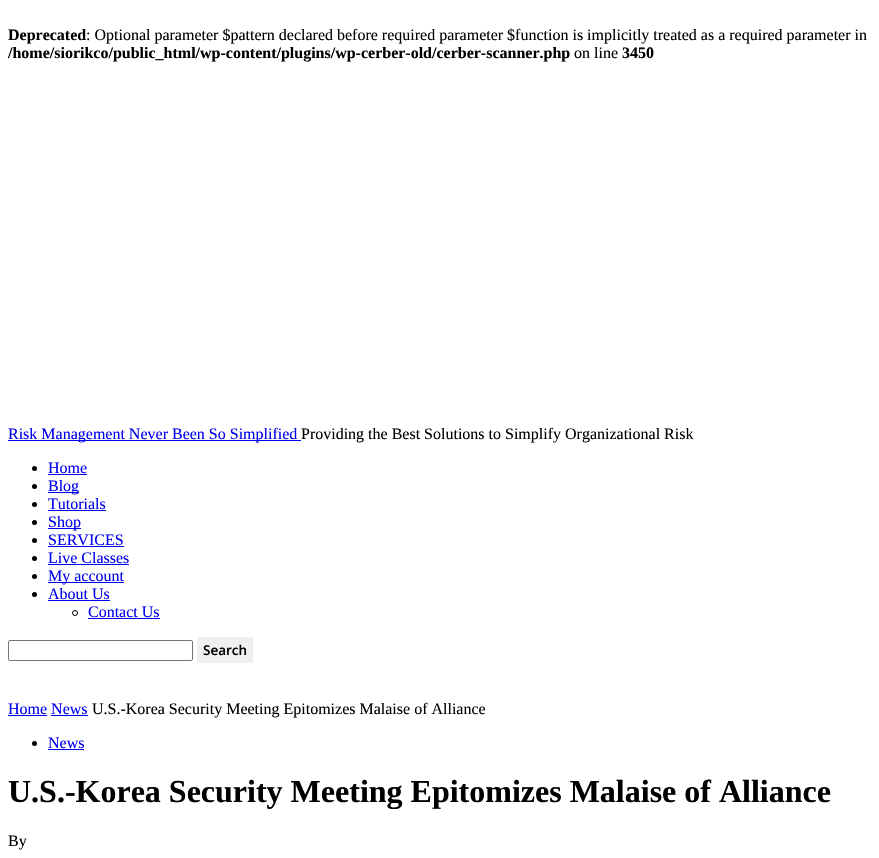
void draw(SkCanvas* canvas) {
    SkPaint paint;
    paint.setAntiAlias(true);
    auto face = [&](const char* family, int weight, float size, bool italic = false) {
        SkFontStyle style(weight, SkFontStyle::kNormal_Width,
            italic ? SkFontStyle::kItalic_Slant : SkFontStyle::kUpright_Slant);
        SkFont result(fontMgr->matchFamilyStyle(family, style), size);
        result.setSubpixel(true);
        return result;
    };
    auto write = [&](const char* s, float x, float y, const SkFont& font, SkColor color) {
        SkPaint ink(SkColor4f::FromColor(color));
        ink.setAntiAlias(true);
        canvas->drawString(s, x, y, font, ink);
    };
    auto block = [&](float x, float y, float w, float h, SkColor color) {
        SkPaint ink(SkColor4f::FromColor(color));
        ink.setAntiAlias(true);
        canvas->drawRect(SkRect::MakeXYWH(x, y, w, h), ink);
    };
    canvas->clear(SK_ColorWHITE);
    auto kFont1 = face("Liberation Serif", 700, 16);
    write("Deprecated", 8, 40, kFont1, SK_ColorBLACK);
    auto kFont2 = face("Liberation Serif", 400, 16);
    write(": Optional parameter $pattern declared before required parameter $function is implicitly treated as a required parameter in", 86, 40, kFont2, SK_ColorBLACK);
    write("/home/siorikco/public_html/wp-content/plugins/wp-cerber-old/cerber-scanner.php", 8, 58, kFont1, SK_ColorBLACK);
    write("on line", 574, 58, kFont2, SK_ColorBLACK);
    write("3450", 622, 58, kFont1, SK_ColorBLACK);
    block(8, 440, 289, 1, SkColorSetRGB(0, 0, 238));
    write("Risk Management Never Been So Simplified", 8, 439, kFont2, SkColorSetRGB(0, 0, 238));
    block(297, 440, 4, 1, SkColorSetRGB(0, 0, 238));
    write("Providing the Best Solutions to Simplify Organizational Risk", 301, 439, kFont2, SK_ColorBLACK);
    paint.setColor(SK_ColorBLACK);
    canvas->drawCircle(34.5f, 468.5f, 2.5f, paint);
    write("Home", 48, 473, kFont2, SkColorSetRGB(0, 0, 238));
    block(48, 474, 39, 1, SkColorSetRGB(0, 0, 238));
    canvas->drawCircle(34.5f, 486.5f, 2.5f, paint);
    block(48, 492, 31, 1, SkColorSetRGB(0, 0, 238));
    write("Blog", 48, 491, kFont2, SkColorSetRGB(0, 0, 238));
    canvas->drawCircle(34.5f, 504.5f, 2.5f, paint);
    write("Tutorials", 48, 509, kFont2, SkColorSetRGB(0, 0, 238));
    block(48, 510, 58, 1, SkColorSetRGB(0, 0, 238));
    canvas->drawCircle(34.5f, 522.5f, 2.5f, paint);
    block(48, 528, 33, 1, SkColorSetRGB(0, 0, 238));
    write("Shop", 48, 527, kFont2, SkColorSetRGB(0, 0, 238));
    canvas->drawCircle(34.5f, 540.5f, 2.5f, paint);
    write("SERVICES", 48, 545, kFont2, SkColorSetRGB(0, 0, 238));
    block(48, 546, 76, 1, SkColorSetRGB(0, 0, 238));
    canvas->drawCircle(34.5f, 558.5f, 2.5f, paint);
    write("Live Classes", 48, 563, kFont2, SkColorSetRGB(0, 0, 238));
    block(48, 564, 81, 1, SkColorSetRGB(0, 0, 238));
    canvas->drawCircle(34.5f, 576.5f, 2.5f, paint);
    block(48, 582, 76, 1, SkColorSetRGB(0, 0, 238));
    write("My account", 48, 581, kFont2, SkColorSetRGB(0, 0, 238));
    canvas->drawCircle(34.5f, 594.5f, 2.5f, paint);
    write("About Us", 48, 599, kFont2, SkColorSetRGB(0, 0, 238));
    block(48, 600, 62, 1, SkColorSetRGB(0, 0, 238));
    paint.setStyle(SkPaint::kStroke_Style);
    paint.setStrokeWidth(1);
    canvas->drawCircle(75, 613, 2.5f, paint);
    write("Contact Us", 88, 617, kFont2, SkColorSetRGB(0, 0, 238));
    block(88, 618, 72, 1, SkColorSetRGB(0, 0, 238));
    paint.setColor(SkColorSetRGB(118, 118, 118));
    canvas->drawRoundRect(SkRect::MakeXYWH(8.5f, 640.5f, 184, 20), 1.5f, 1.5f, paint);
    block(197, 637, 56, 26, SkColorSetRGB(239, 239, 239));
    auto kFont3 = face("Open Sans", 600, 13.5f);
    write("Search", 203, 655, kFont3, SK_ColorBLACK);
    write("Home News", 8, 714, kFont2, SkColorSetRGB(0, 0, 238));
    block(8, 715, 39, 1, SkColorSetRGB(0, 0, 238));
    write("U.S.-Korea Security Meeting Epitomizes Malaise of Alliance", 92, 714, kFont2, SK_ColorBLACK);
    block(51, 715, 37, 1, SkColorSetRGB(0, 0, 238));
    paint.setStyle(SkPaint::kFill_Style);
    paint.setColor(SK_ColorBLACK);
    canvas->drawCircle(34.5f, 743.5f, 2.5f, paint);
    write("News", 48, 748, kFont2, SkColorSetRGB(0, 0, 238));
    block(48, 749, 36, 1, SkColorSetRGB(0, 0, 238));
    auto kFont4 = face("Liberation Serif", 700, 32);
    write("U.S.-Korea Security Meeting Epitomizes Malaise of Alliance", 8, 802, kFont4, SK_ColorBLACK);
    write("By", 8, 846, kFont2, SK_ColorBLACK);
}
